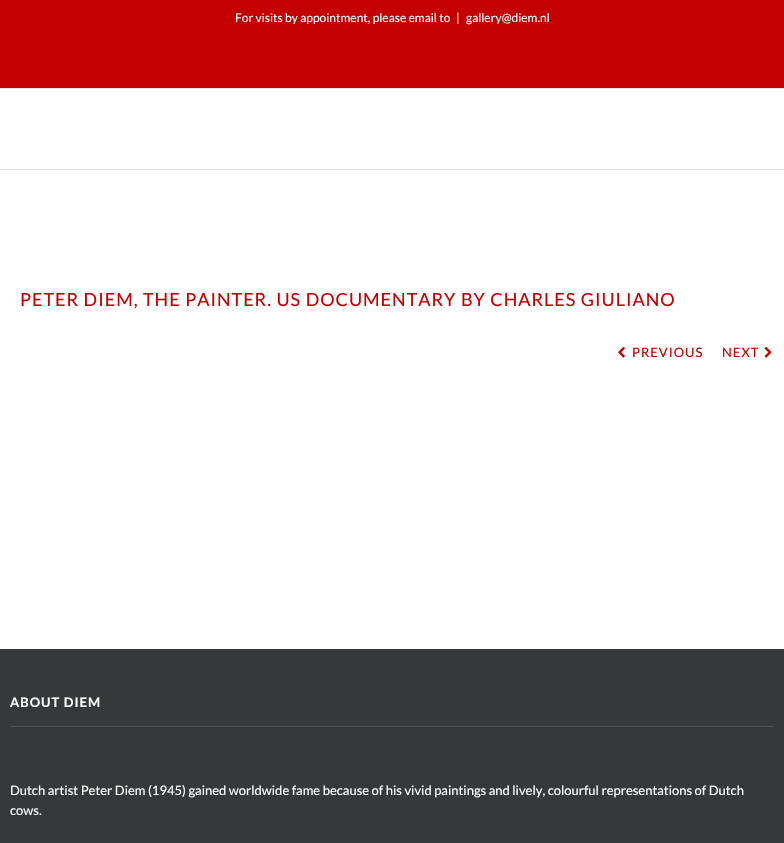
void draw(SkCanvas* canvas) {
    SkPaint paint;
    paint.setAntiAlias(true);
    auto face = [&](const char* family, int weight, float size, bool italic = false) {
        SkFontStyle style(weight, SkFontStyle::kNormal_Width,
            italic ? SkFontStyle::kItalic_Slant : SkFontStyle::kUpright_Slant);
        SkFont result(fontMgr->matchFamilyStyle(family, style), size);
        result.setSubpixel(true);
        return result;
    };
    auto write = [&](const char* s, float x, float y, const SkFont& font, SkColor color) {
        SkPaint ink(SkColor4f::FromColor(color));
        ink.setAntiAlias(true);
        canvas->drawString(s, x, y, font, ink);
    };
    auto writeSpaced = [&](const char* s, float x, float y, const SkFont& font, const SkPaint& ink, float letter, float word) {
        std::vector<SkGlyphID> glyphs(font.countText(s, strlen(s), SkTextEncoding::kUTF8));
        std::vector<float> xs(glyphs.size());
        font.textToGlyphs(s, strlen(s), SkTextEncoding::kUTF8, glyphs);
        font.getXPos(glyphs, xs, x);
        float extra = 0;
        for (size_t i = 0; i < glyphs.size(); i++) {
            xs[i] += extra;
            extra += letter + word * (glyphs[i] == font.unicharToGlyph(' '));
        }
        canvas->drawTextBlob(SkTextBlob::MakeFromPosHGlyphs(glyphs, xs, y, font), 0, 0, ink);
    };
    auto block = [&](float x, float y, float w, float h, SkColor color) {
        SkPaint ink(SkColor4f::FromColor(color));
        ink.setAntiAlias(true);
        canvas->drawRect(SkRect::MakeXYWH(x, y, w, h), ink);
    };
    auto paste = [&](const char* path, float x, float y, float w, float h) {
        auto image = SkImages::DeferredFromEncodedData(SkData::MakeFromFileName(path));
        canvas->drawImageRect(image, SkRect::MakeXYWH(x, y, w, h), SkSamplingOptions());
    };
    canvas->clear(SK_ColorWHITE);
    block(0, 0, 784, 88, SkColorSetRGB(196, 0, 0));
    block(0, 88, 784, 1, SkColorSetRGB(229, 229, 229));
    auto kFont1 = face("Lato", 400, 12);
    write("For visits by appointment, please email to", 235, 22, kFont1, SK_ColorWHITE);
    write("|", 456, 22, kFont1, SK_ColorWHITE);
    write("gallery@diem.nl", 466, 22, kFont1, SK_ColorWHITE);
    block(0, 169, 784, 1, SkColorSetRGB(229, 229, 229));
    auto kFont2 = face("Lato", 400, 18);
    paint.setColor(SkColorSetRGB(196, 0, 0));
    writeSpaced("PETER DIEM, THE PAINTER. US DOCUMENTARY BY CHARLES GIULIANO", 20, 306, kFont2, paint, 1, 0);
    paste("pic1.png", 618, 346, 7, 12);
    auto kFont3 = face("Lato", 400, 13);
    writeSpaced("PREVIOUS", 632, 357, kFont3, paint, 1, 0);
    writeSpaced("NEXT", 722, 357, kFont3, paint, 1, 0);
    paste("pic2.png", 764, 346, 8, 12);
    block(0, 649, 784, 194, SkColorSetRGB(54, 56, 57));
    block(10, 726, 764, 1, SkColorSetRGB(80, 81, 82));
    auto kFont4 = face("Lato", 700, 13);
    paint.setColor(SK_ColorWHITE);
    writeSpaced("ABOUT DIEM", 10, 707, kFont4, paint, 1, 0);
    write("Dutch artist Peter Diem (1945) gained worldwide fame because of his vivid paintings and lively, colourful representations of Dutch", 10, 795, kFont3, SK_ColorWHITE);
    write("cows.", 10, 815, kFont3, SK_ColorWHITE);
}
